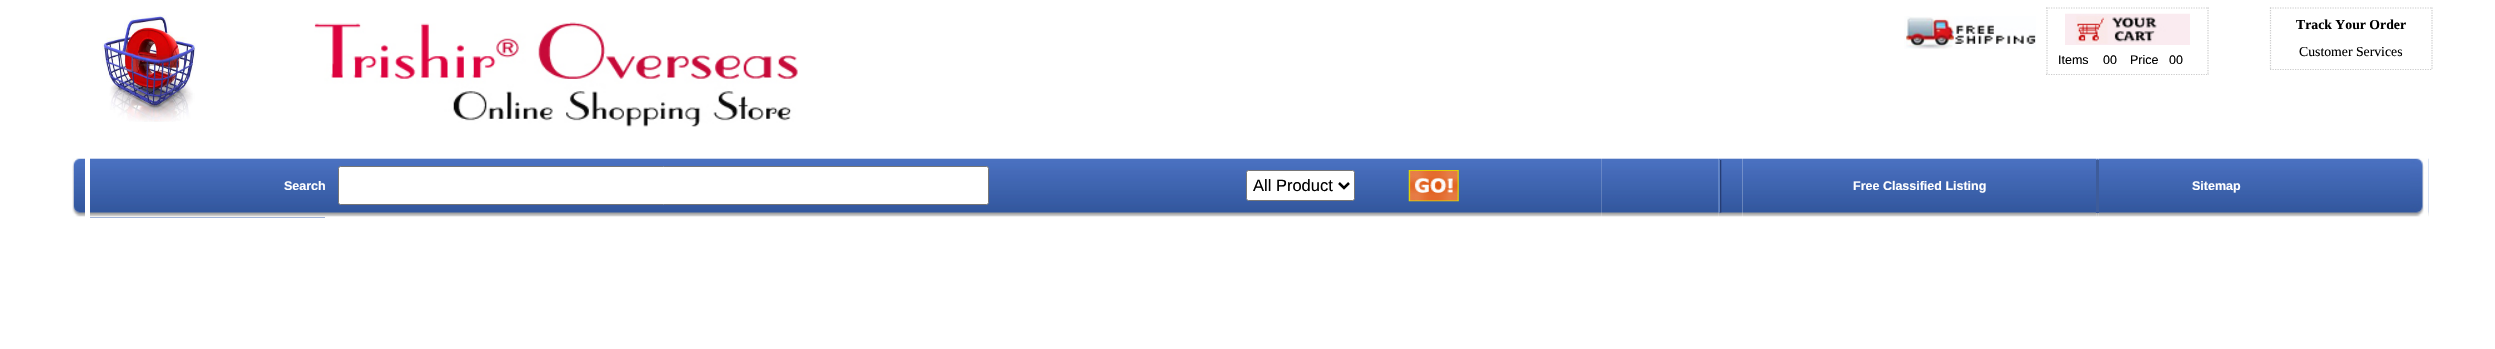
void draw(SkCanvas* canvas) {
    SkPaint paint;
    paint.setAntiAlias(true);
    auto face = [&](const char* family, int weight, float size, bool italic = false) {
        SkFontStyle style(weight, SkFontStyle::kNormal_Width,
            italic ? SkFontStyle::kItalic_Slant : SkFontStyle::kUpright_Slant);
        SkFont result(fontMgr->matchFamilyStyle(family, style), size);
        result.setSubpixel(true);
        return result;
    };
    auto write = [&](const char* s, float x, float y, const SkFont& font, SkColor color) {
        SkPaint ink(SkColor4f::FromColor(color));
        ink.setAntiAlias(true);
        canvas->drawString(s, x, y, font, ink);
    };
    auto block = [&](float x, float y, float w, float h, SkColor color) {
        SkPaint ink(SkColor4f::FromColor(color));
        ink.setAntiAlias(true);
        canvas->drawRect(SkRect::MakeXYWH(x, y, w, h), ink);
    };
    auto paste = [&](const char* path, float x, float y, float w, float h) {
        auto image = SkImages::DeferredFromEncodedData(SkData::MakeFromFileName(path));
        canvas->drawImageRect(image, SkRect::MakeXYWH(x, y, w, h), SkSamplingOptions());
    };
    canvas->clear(SK_ColorWHITE);
    paste("pic1.png", 102, 15, 94, 107);
    paste("pic2.png", 314, 22, 484, 105);
    paste("pic3.png", 1904, 16, 132, 33);
    paint.setStyle(SkPaint::kStroke_Style);
    paint.setStrokeWidth(1.2f);
    paint.setColor(SkColorSetRGB(204, 204, 204));
    paint.setPathEffect(SkDashPathEffect::Make({{1.25f, 1.25f}}, 0));
    canvas->drawPath(SkPathBuilder().moveTo(2270, 8).lineTo(2432.5f, 8).detach(), paint);
    paint.setPathEffect(nullptr);
    paint.setPathEffect(SkDashPathEffect::Make({{1.25f, 1.25f}}, 0));
    canvas->drawPath(SkPathBuilder().moveTo(2432, 7.5f).lineTo(2432, 70).detach(), paint);
    paint.setPathEffect(nullptr);
    paint.setPathEffect(SkDashPathEffect::Make({{1.25f, 1.25f}}, 0));
    canvas->drawPath(SkPathBuilder().moveTo(2270, 69.5f).lineTo(2432.5f, 69.5f).detach(), paint);
    paint.setPathEffect(nullptr);
    paint.setPathEffect(SkDashPathEffect::Make({{1.25f, 1.25f}}, 0));
    canvas->drawPath(SkPathBuilder().moveTo(2270.5f, 7.5f).lineTo(2270.5f, 70).detach(), paint);
    paint.setPathEffect(nullptr);
    auto kFont1 = face("Liberation Serif", 700, 13.75f);
    write("Track Your Order", 2296, 29, kFont1, SK_ColorBLACK);
    auto kFont2 = face("Liberation Serif", 400, 13.75f);
    write("Customer Services", 2299, 56, kFont2, SK_ColorBLACK);
    paint.setPathEffect(SkDashPathEffect::Make({{1.25f, 1.25f}}, 0));
    canvas->drawPath(SkPathBuilder().moveTo(2046, 8).lineTo(2209, 8).detach(), paint);
    paint.setPathEffect(nullptr);
    paint.setPathEffect(SkDashPathEffect::Make({{1.25f, 1.25f}}, 0));
    canvas->drawPath(SkPathBuilder().moveTo(2208, 7.5f).lineTo(2208, 75).detach(), paint);
    paint.setPathEffect(nullptr);
    paint.setPathEffect(SkDashPathEffect::Make({{1.25f, 1.25f}}, 0));
    canvas->drawPath(SkPathBuilder().moveTo(2046, 74.5f).lineTo(2209, 74.5f).detach(), paint);
    paint.setPathEffect(nullptr);
    paint.setPathEffect(SkDashPathEffect::Make({{1.25f, 1.25f}}, 0));
    canvas->drawPath(SkPathBuilder().moveTo(2047, 7.5f).lineTo(2047, 75).detach(), paint);
    paint.setPathEffect(nullptr);
    paste("pic4.png", 2065, 13, 125, 32);
    auto kFont3 = face("Liberation Sans", 400, 12.5f);
    write("Items", 2058, 64, kFont3, SK_ColorBLACK);
    write("00", 2103, 64, kFont3, SK_ColorBLACK);
    write("Price", 2130, 64, kFont3, SK_ColorBLACK);
    write("00", 2169, 64, kFont3, SK_ColorBLACK);
    paste("pic5.png", 72, 158, 13, 59);
    block(90, 217, 235, 1, SkColorSetRGB(64, 102, 177));
    paste("pic6.png", 90, 154, 235, 64);
    auto kFont4 = face("Liberation Sans", 700, 12.5f);
    write("Search", 284, 190, kFont4, SK_ColorWHITE);
    paste("pic7.png", 325, 158, 1277, 59);
    paint.setStyle(SkPaint::kFill_Style);
    paint.setColor(SK_ColorWHITE);
    canvas->drawRoundRect(SkRect::MakeXYWH(338.5f, 166.5f, 650, 38), 2, 2, paint);
    paint.setStyle(SkPaint::kStroke_Style);
    paint.setStrokeWidth(1);
    paint.setColor(SkColorSetRGB(118, 118, 118));
    canvas->drawRoundRect(SkRect::MakeXYWH(338.5f, 166.5f, 650, 38), 2, 2, paint);
    paint.setStyle(SkPaint::kFill_Style);
    paint.setColor(SK_ColorWHITE);
    canvas->drawRoundRect(SkRect::MakeXYWH(1246.5f, 170.5f, 108, 30), 2, 2, paint);
    paint.setStyle(SkPaint::kStroke_Style);
    paint.setColor(SkColorSetRGB(118, 118, 118));
    canvas->drawRoundRect(SkRect::MakeXYWH(1246.5f, 170.5f, 108, 30), 2, 2, paint);
    paint.setStrokeWidth(2.5f);
    paint.setColor(SK_ColorBLACK);
    canvas->drawPath(SkPathBuilder().moveTo(1339, 183).lineTo(1344, 188).lineTo(1349, 183).detach(), paint);
    auto kFont5 = face("Liberation Sans", 400, 16.5f);
    write("All Product", 1253, 191, kFont5, SK_ColorBLACK);
    paste("pic8.png", 1408, 170, 51, 32);
    paste("pic9.png", 1601, 158, 118, 59);
    paste("pic10.png", 1718, 158, 25, 59);
    paste("pic11.png", 1718, 160, 4, 53);
    paste("pic12.png", 1742, 158, 355, 59);
    write("Free Classified Listing", 1853, 190, kFont4, SK_ColorWHITE);
    paste("pic13.png", 2096, 158, 3, 59);
    paste("pic14.png", 2098, 158, 237, 59);
    block(2096, 160, 3, 53, SkColorSetRGB(62, 92, 154));
    write("Sitemap", 2192, 190, kFont4, SK_ColorWHITE);
    paste("pic15.png", 2335, 158, 94, 59);
    paste("pic16.png", 2410, 158, 19, 59);
}
